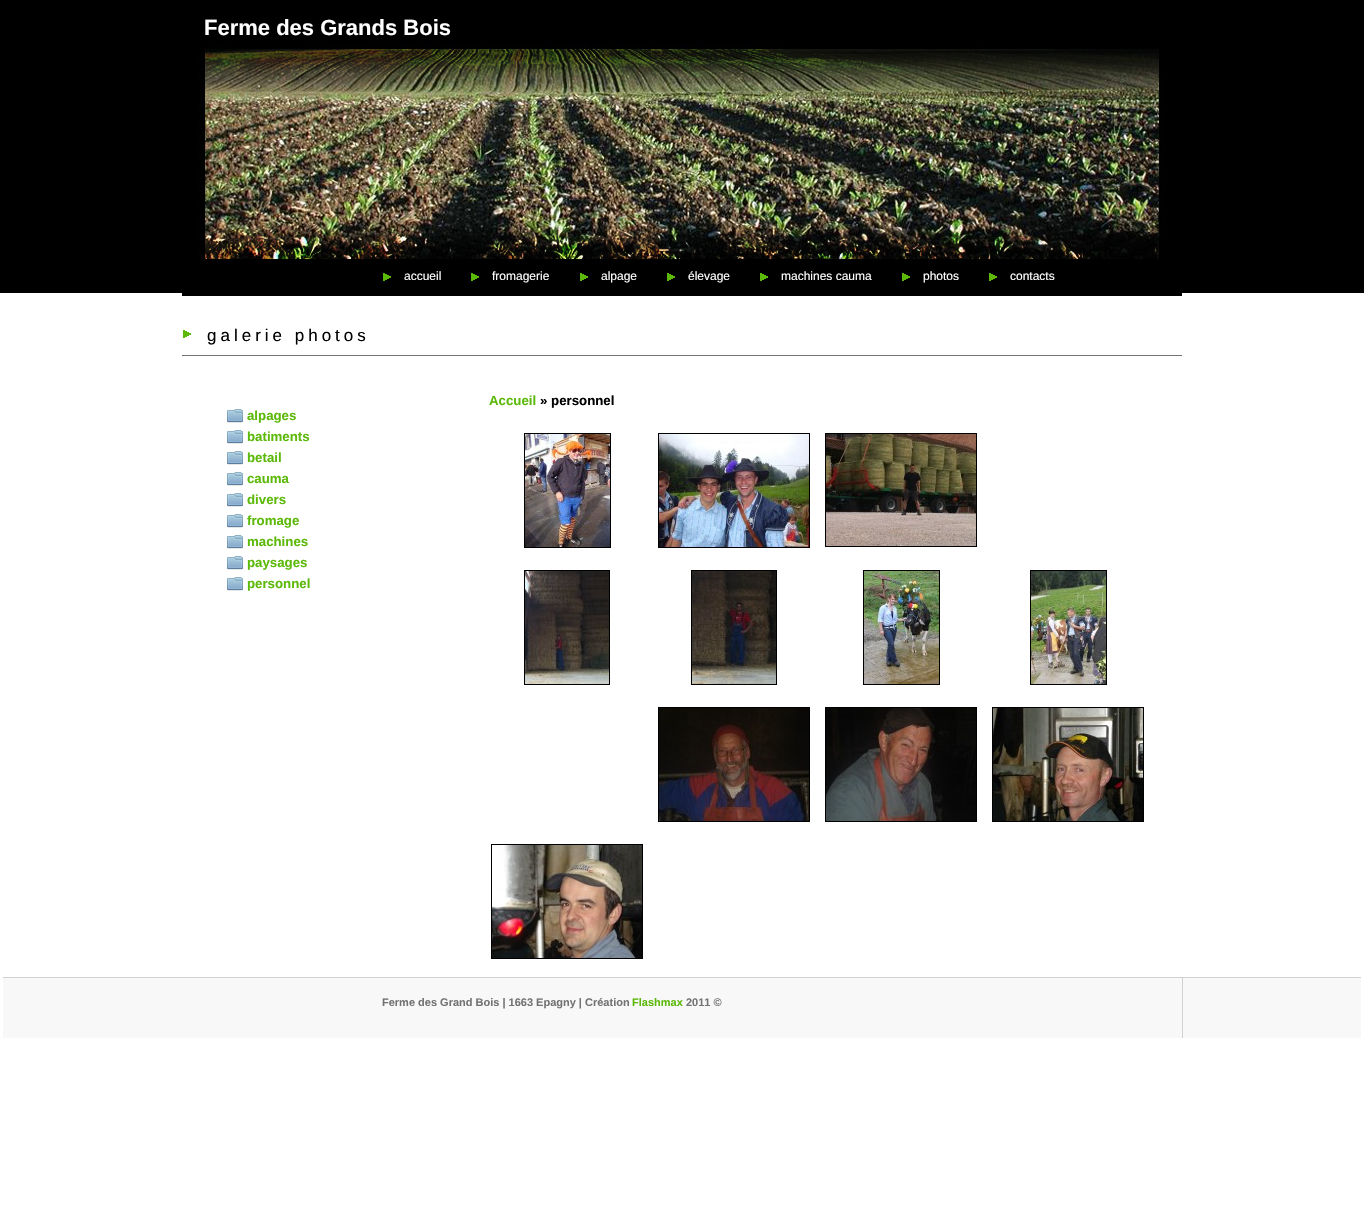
void draw(SkCanvas* canvas) {
    SkPaint paint;
    paint.setAntiAlias(true);
    auto face = [&](const char* family, int weight, float size, bool italic = false) {
        SkFontStyle style(weight, SkFontStyle::kNormal_Width,
            italic ? SkFontStyle::kItalic_Slant : SkFontStyle::kUpright_Slant);
        SkFont result(fontMgr->matchFamilyStyle(family, style), size);
        result.setSubpixel(true);
        return result;
    };
    auto write = [&](const char* s, float x, float y, const SkFont& font, SkColor color) {
        SkPaint ink(SkColor4f::FromColor(color));
        ink.setAntiAlias(true);
        canvas->drawString(s, x, y, font, ink);
    };
    auto writeSpaced = [&](const char* s, float x, float y, const SkFont& font, const SkPaint& ink, float letter, float word) {
        std::vector<SkGlyphID> glyphs(font.countText(s, strlen(s), SkTextEncoding::kUTF8));
        std::vector<float> xs(glyphs.size());
        font.textToGlyphs(s, strlen(s), SkTextEncoding::kUTF8, glyphs);
        font.getXPos(glyphs, xs, x);
        float extra = 0;
        for (size_t i = 0; i < glyphs.size(); i++) {
            xs[i] += extra;
            extra += letter + word * (glyphs[i] == font.unicharToGlyph(' '));
        }
        canvas->drawTextBlob(SkTextBlob::MakeFromPosHGlyphs(glyphs, xs, y, font), 0, 0, ink);
    };
    auto block = [&](float x, float y, float w, float h, SkColor color) {
        SkPaint ink(SkColor4f::FromColor(color));
        ink.setAntiAlias(true);
        canvas->drawRect(SkRect::MakeXYWH(x, y, w, h), ink);
    };
    auto paste = [&](const char* path, float x, float y, float w, float h) {
        auto image = SkImages::DeferredFromEncodedData(SkData::MakeFromFileName(path));
        canvas->drawImageRect(image, SkRect::MakeXYWH(x, y, w, h), SkSamplingOptions());
    };
    canvas->clear(SK_ColorWHITE);
    block(0, 0, 1364, 293, SK_ColorBLACK);
    paste("pic1.png", 182, 3, 1000, 258);
    auto kFont1 = face("Liberation Sans", 700, 22);
    write("Ferme des Grands Bois", 204, 35, kFont1, SK_ColorWHITE);
    block(182, 293, 1000, 3, SK_ColorBLACK);
    paste("pic2.png", 383, 273, 8, 8);
    auto kFont2 = face("Liberation Sans", 400, 12);
    write("accueil", 404, 280, kFont2, SK_ColorWHITE);
    paste("pic2.png", 471, 273, 8, 8);
    write("fromagerie", 492, 280, kFont2, SK_ColorWHITE);
    paste("pic2.png", 580, 273, 8, 8);
    write("alpage", 601, 280, kFont2, SK_ColorWHITE);
    paste("pic2.png", 667, 273, 8, 8);
    write("élevage", 688, 280, kFont2, SK_ColorWHITE);
    paste("pic2.png", 760, 273, 8, 8);
    write("machines cauma", 781, 280, kFont2, SK_ColorWHITE);
    paste("pic2.png", 902, 273, 8, 8);
    write("photos", 923, 280, kFont2, SK_ColorWHITE);
    paste("pic2.png", 989, 273, 8, 8);
    write("contacts", 1010, 280, kFont2, SK_ColorWHITE);
    paste("pic3.png", 183, 330, 8, 8);
    block(182, 355, 1000, 1, SkColorSetRGB(117, 117, 117));
    auto kFont3 = face("Liberation Sans", 400, 17);
    paint.setColor(SK_ColorBLACK);
    writeSpaced("galerie photos", 207, 341, kFont3, paint, 4, 0);
    auto kFont4 = face("Liberation Sans", 700, 13.25f);
    write("Accueil", 489, 405, kFont4, SkColorSetRGB(92, 185, 9));
    write("» personnel", 540, 405, kFont4, SK_ColorBLACK);
    paint.setStyle(SkPaint::kStroke_Style);
    paint.setStrokeWidth(1);
    canvas->drawRect(SkRect::MakeXYWH(524.5f, 433.5f, 86, 114), paint);
    paste("pic4.png", 525, 434, 85, 113);
    canvas->drawRect(SkRect::MakeXYWH(658.5f, 433.5f, 151, 114), paint);
    paste("pic5.png", 659, 434, 150, 113);
    canvas->drawRect(SkRect::MakeXYWH(825.5f, 433.5f, 151, 113), paint);
    paste("pic6.png", 826, 434, 150, 112);
    canvas->drawRect(SkRect::MakeXYWH(524.5f, 570.5f, 85, 114), paint);
    paste("pic7.png", 525, 571, 84, 113);
    canvas->drawRect(SkRect::MakeXYWH(691.5f, 570.5f, 85, 114), paint);
    paste("pic8.png", 692, 571, 84, 113);
    canvas->drawRect(SkRect::MakeXYWH(863.5f, 570.5f, 76, 114), paint);
    paste("pic9.png", 864, 571, 75, 113);
    canvas->drawRect(SkRect::MakeXYWH(1030.5f, 570.5f, 76, 114), paint);
    paste("pic10.png", 1031, 571, 75, 113);
    canvas->drawRect(SkRect::MakeXYWH(658.5f, 707.5f, 151, 114), paint);
    paste("pic11.png", 659, 708, 150, 113);
    canvas->drawRect(SkRect::MakeXYWH(825.5f, 707.5f, 151, 114), paint);
    paste("pic12.png", 826, 708, 150, 113);
    canvas->drawRect(SkRect::MakeXYWH(992.5f, 707.5f, 151, 114), paint);
    paste("pic13.png", 993, 708, 150, 113);
    canvas->drawRect(SkRect::MakeXYWH(491.5f, 844.5f, 151, 114), paint);
    paste("pic14.png", 492, 845, 150, 113);
    paste("pic15.png", 227, 409, 16, 14);
    write("alpages", 247, 420, kFont4, SkColorSetRGB(92, 185, 9));
    paste("pic15.png", 227, 430, 16, 14);
    write("batiments", 247, 441, kFont4, SkColorSetRGB(92, 185, 9));
    paste("pic15.png", 227, 451, 16, 14);
    write("betail", 247, 462, kFont4, SkColorSetRGB(92, 185, 9));
    paste("pic15.png", 227, 472, 16, 14);
    write("cauma", 247, 483, kFont4, SkColorSetRGB(92, 185, 9));
    paste("pic15.png", 227, 493, 16, 14);
    write("divers", 247, 504, kFont4, SkColorSetRGB(92, 185, 9));
    paste("pic15.png", 227, 514, 16, 14);
    write("fromage", 247, 525, kFont4, SkColorSetRGB(92, 185, 9));
    paste("pic15.png", 227, 535, 16, 14);
    write("machines", 247, 546, kFont4, SkColorSetRGB(92, 185, 9));
    paste("pic15.png", 227, 556, 16, 14);
    write("paysages", 247, 567, kFont4, SkColorSetRGB(92, 185, 9));
    paste("pic15.png", 227, 577, 16, 14);
    write("personnel", 247, 588, kFont4, SkColorSetRGB(92, 185, 9));
    block(3, 978, 1358, 60, SkColorSetRGB(248, 248, 248));
    block(3, 977, 1358, 1, SkColorSetRGB(210, 209, 209));
    block(1182, 978, 1, 60, SkColorSetRGB(210, 209, 209));
    auto kFont5 = face("Liberation Sans", 700, 11);
    write("Ferme des Grand Bois | 1663 Epagny | Création", 382, 1006, kFont5, SkColorSetRGB(115, 115, 115));
    write("Flashmax", 632, 1006, kFont5, SkColorSetRGB(92, 185, 9));
    write("2011 ©", 686, 1006, kFont5, SkColorSetRGB(115, 115, 115));
}
